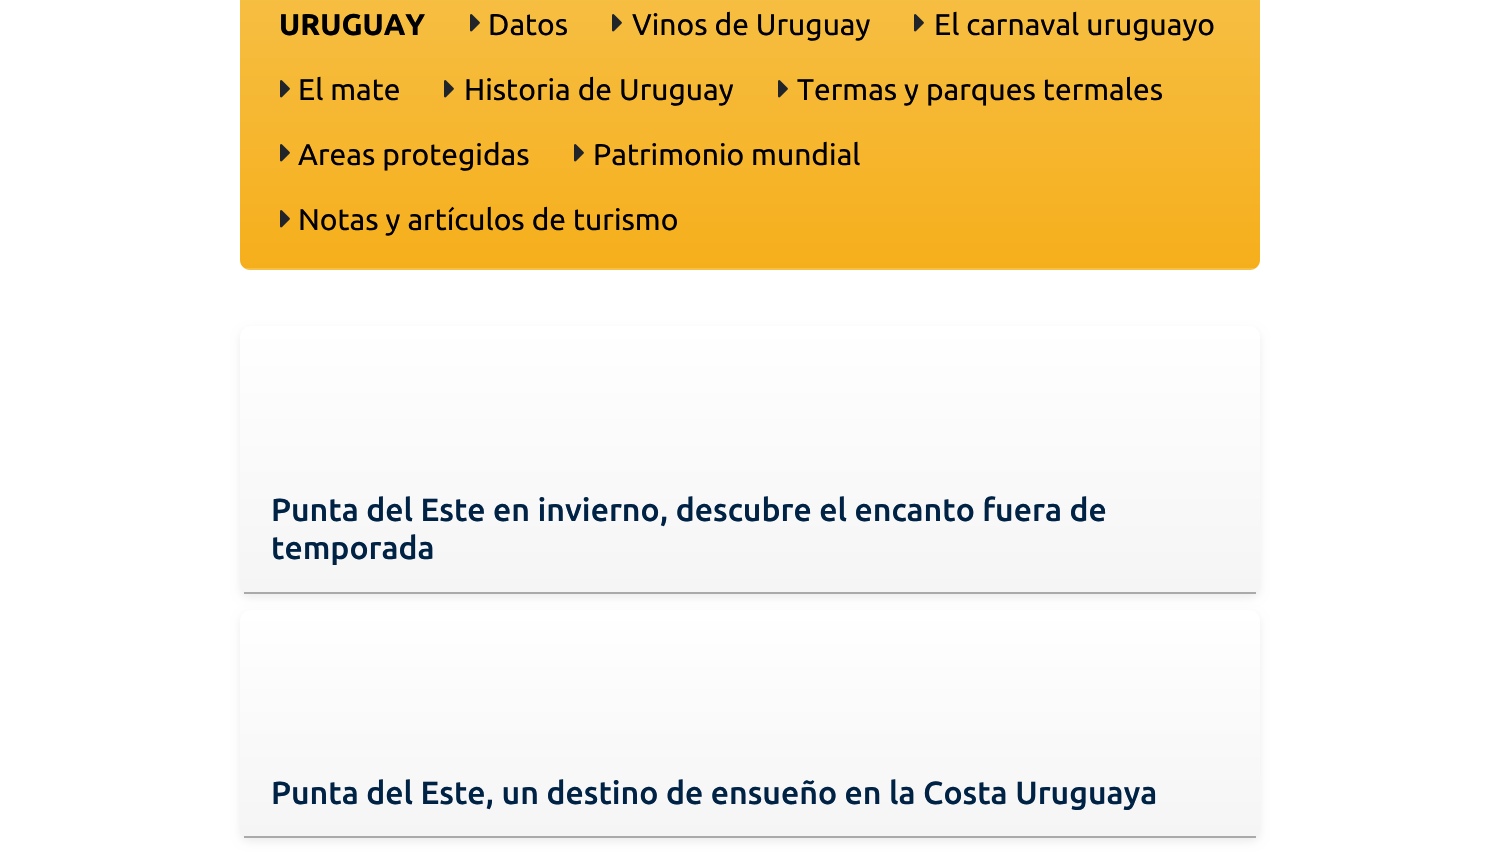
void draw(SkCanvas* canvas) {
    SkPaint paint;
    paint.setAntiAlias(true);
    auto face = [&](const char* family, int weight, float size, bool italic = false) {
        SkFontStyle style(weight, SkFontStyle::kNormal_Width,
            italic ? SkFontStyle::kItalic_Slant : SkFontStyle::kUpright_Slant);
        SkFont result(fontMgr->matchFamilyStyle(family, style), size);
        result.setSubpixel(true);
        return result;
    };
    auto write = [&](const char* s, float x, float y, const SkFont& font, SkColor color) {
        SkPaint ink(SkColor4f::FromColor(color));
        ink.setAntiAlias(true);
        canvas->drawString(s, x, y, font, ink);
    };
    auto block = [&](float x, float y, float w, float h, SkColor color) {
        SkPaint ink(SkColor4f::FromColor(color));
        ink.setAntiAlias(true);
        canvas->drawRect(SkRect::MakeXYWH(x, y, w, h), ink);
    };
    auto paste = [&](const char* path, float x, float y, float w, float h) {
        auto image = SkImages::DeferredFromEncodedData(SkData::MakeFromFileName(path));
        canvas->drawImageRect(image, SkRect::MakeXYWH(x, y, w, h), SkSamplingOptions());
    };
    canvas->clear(SK_ColorWHITE);
    canvas->save();
    canvas->clipPath(SkPathBuilder().moveTo(250, -26).lineTo(1250, -26).cubicTo(1255.5f, -26, 1260, -21.5f, 1260, -16).lineTo(1260, 260).cubicTo(1260, 265.5f, 1255.5f, 270, 1250, 270).lineTo(250, 270).cubicTo(244.5f, 270, 240, 265.5f, 240, 260).lineTo(240, -16).cubicTo(240, -21.5f, 244.5f, -26, 250, -26).close().detach(), true);
    {
        const SkColor colors[] = {SkColorSetRGB(246, 191, 69), SkColorSetRGB(246, 175, 28)};
        const float stops[] = {0, 1};
        const SkPoint ends[] = {{750, -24}, {750, 268}};
        paint.setShader(SkGradientShader::MakeLinear(ends, colors, stops, 2, SkTileMode::kClamp));
        paint.setAlpha(255);
    }
    canvas->drawRect(SkRect::MakeXYWH(240, 0, 1020, 268), paint);
    {
        const SkColor colors[] = {SkColorSetRGB(246, 191, 69), SkColorSetRGB(246, 175, 28)};
        const float stops[] = {0, 1};
        const SkPoint ends[] = {{750, 268}, {750, 560}};
        paint.setShader(SkGradientShader::MakeLinear(ends, colors, stops, 2, SkTileMode::kClamp));
        paint.setAlpha(255);
    }
    canvas->drawRect(SkRect::MakeXYWH(240, 268, 1020, 2), paint);
    canvas->restore();
    auto kFont1 = face("Ubuntu", 700, 30);
    write("URUGUAY", 279, 35, kFont1, SK_ColorBLACK);
    paste("pic1.png", 470, 14, 10, 18);
    auto kFont2 = face("Ubuntu", 400, 30);
    write("Datos", 488, 35, kFont2, SK_ColorBLACK);
    paste("pic1.png", 612, 14, 10, 18);
    write("Vinos de Uruguay", 632, 35, kFont2, SK_ColorBLACK);
    paste("pic1.png", 914, 14, 10, 18);
    write("El carnaval uruguayo", 934, 35, kFont2, SK_ColorBLACK);
    paste("pic2.png", 280, 80, 10, 18);
    write("El mate", 298, 100, kFont2, SK_ColorBLACK);
    paste("pic2.png", 444, 80, 10, 18);
    write("Historia de Uruguay", 464, 100, kFont2, SK_ColorBLACK);
    paste("pic2.png", 778, 80, 10, 18);
    write("Termas y parques termales", 797, 100, kFont2, SK_ColorBLACK);
    paste("pic3.png", 280, 144, 10, 18);
    write("Areas protegidas", 298, 165, kFont2, SK_ColorBLACK);
    paste("pic3.png", 574, 144, 10, 18);
    write("Patrimonio mundial", 593, 165, kFont2, SK_ColorBLACK);
    paste("pic4.png", 280, 210, 10, 18);
    write("Notas y artículos de turismo", 298, 230, kFont2, SK_ColorBLACK);
    paint.setShader(nullptr);
    paint.setColor(SkColorSetARGB(18, 0, 0, 0));
    paint.setMaskFilter(SkMaskFilter::MakeBlur(kNormal_SkBlurStyle, 4));
    canvas->drawRoundRect(SkRect::MakeXYWH(240, 330, 1020, 268), 10, 10, paint);
    paint.setMaskFilter(nullptr);
    canvas->save();
    canvas->clipPath(SkPathBuilder().moveTo(250, 326).lineTo(1250, 326).cubicTo(1255.5f, 326, 1260, 330.5f, 1260, 336).lineTo(1260, 584).cubicTo(1260, 589.5f, 1255.5f, 594, 1250, 594).lineTo(250, 594).cubicTo(244.5f, 594, 240, 589.5f, 240, 584).lineTo(240, 336).cubicTo(240, 330.5f, 244.5f, 326, 250, 326).close().detach(), true);
    {
        const SkColor colors[] = {SK_ColorWHITE, SkColorSetRGB(245, 245, 245)};
        const float stops[] = {0, 1};
        const SkPoint ends[] = {{750, 326}, {750, 592}};
        paint.setShader(SkGradientShader::MakeLinear(ends, colors, stops, 2, SkTileMode::kClamp));
        paint.setAlpha(255);
    }
    canvas->drawPath(SkPathBuilder().moveTo(250, 326).lineTo(1250, 326).cubicTo(1255.5f, 326, 1260, 330.5f, 1260, 336).lineTo(1260, 592).lineTo(240, 592).lineTo(240, 336).cubicTo(240, 330.5f, 244.5f, 326, 250, 326).close().detach(), paint);
    canvas->restore();
    block(244, 592, 1012, 2, SkColorSetRGB(170, 170, 170));
    auto kFont3 = face("Ubuntu", 500, 32);
    write("Punta del Este en invierno, descubre el encanto fuera de", 271, 521, kFont3, SkColorSetRGB(0, 34, 68));
    write("temporada", 271, 559, kFont3, SkColorSetRGB(0, 34, 68));
    paint.setShader(nullptr);
    paint.setColor(SkColorSetARGB(18, 0, 0, 0));
    paint.setMaskFilter(SkMaskFilter::MakeBlur(kNormal_SkBlurStyle, 4));
    canvas->drawRoundRect(SkRect::MakeXYWH(240, 614, 1020, 228), 10, 10, paint);
    paint.setMaskFilter(nullptr);
    canvas->save();
    canvas->clipPath(SkPathBuilder().moveTo(250, 610).lineTo(1250, 610).cubicTo(1255.5f, 610, 1260, 614.5f, 1260, 620).lineTo(1260, 828).cubicTo(1260, 833.5f, 1255.5f, 838, 1250, 838).lineTo(250, 838).cubicTo(244.5f, 838, 240, 833.5f, 240, 828).lineTo(240, 620).cubicTo(240, 614.5f, 244.5f, 610, 250, 610).close().detach(), true);
    {
        const SkColor colors[] = {SK_ColorWHITE, SkColorSetRGB(245, 245, 245)};
        const float stops[] = {0, 1};
        const SkPoint ends[] = {{750, 610}, {750, 836}};
        paint.setShader(SkGradientShader::MakeLinear(ends, colors, stops, 2, SkTileMode::kClamp));
        paint.setAlpha(255);
    }
    canvas->drawPath(SkPathBuilder().moveTo(250, 610).lineTo(1250, 610).cubicTo(1255.5f, 610, 1260, 614.5f, 1260, 620).lineTo(1260, 836).lineTo(240, 836).lineTo(240, 620).cubicTo(240, 614.5f, 244.5f, 610, 250, 610).close().detach(), paint);
    canvas->restore();
    block(244, 836, 1012, 2, SkColorSetRGB(170, 170, 170));
    write("Punta del Este, un destino de ensueño en la Costa Uruguaya", 271, 804, kFont3, SkColorSetRGB(0, 34, 68));
}
